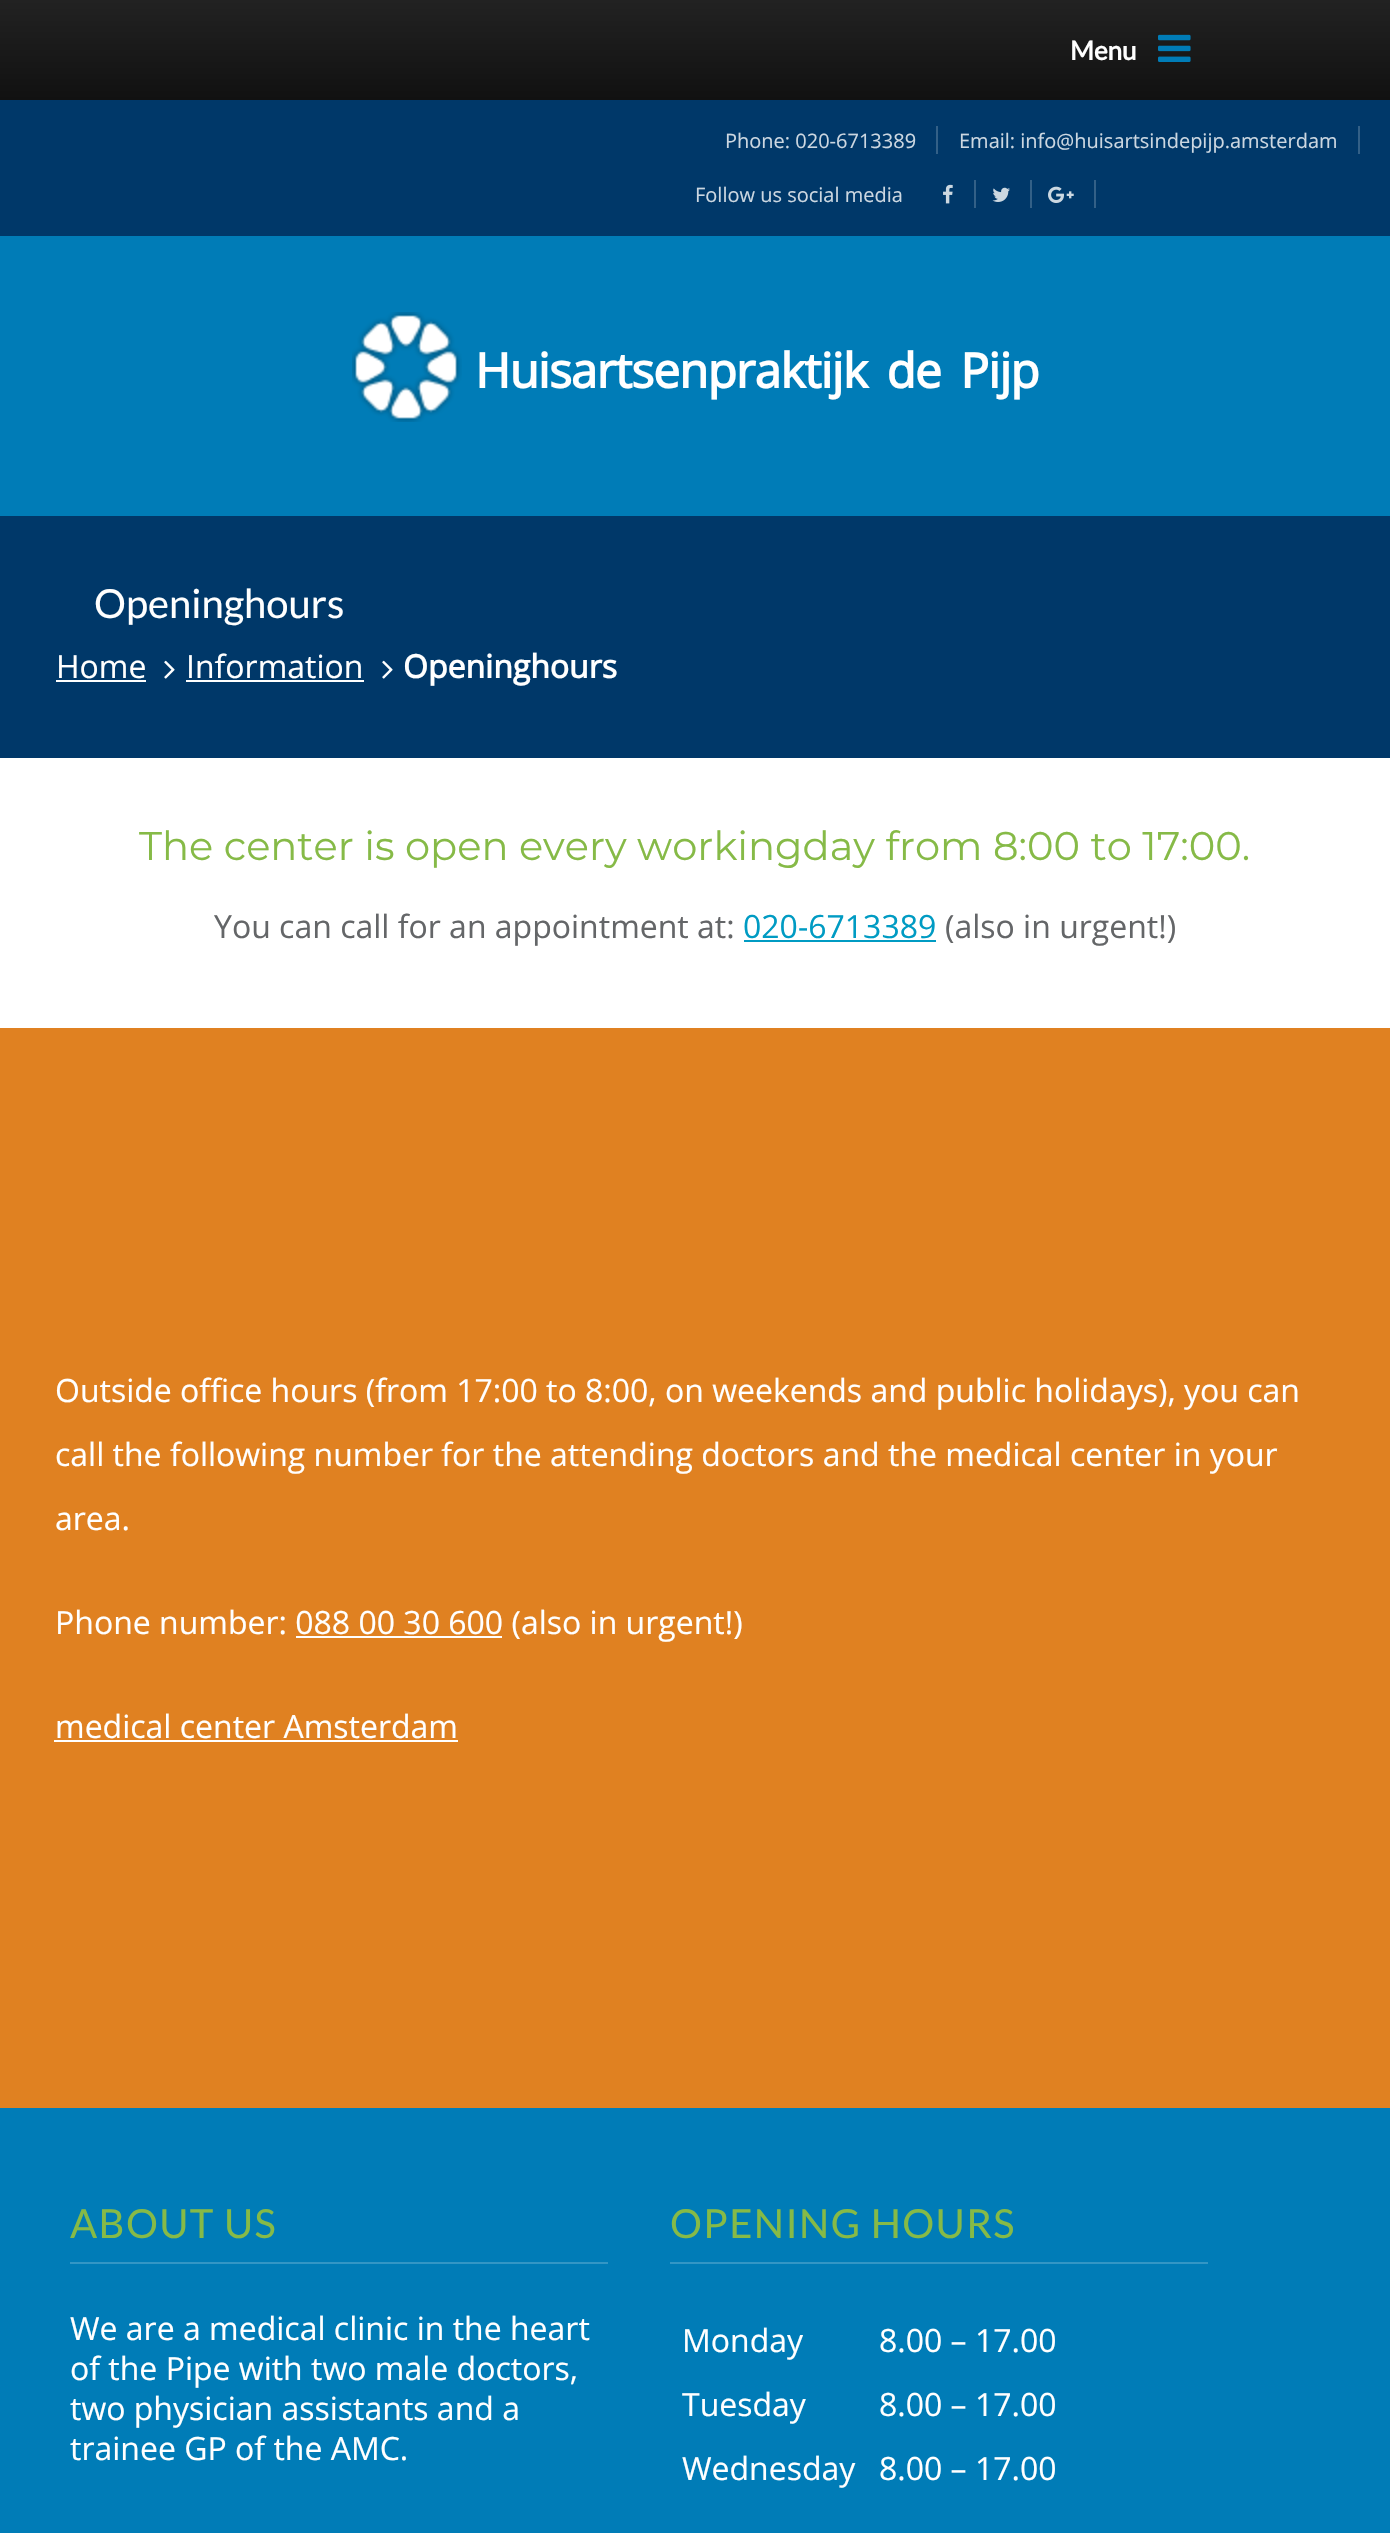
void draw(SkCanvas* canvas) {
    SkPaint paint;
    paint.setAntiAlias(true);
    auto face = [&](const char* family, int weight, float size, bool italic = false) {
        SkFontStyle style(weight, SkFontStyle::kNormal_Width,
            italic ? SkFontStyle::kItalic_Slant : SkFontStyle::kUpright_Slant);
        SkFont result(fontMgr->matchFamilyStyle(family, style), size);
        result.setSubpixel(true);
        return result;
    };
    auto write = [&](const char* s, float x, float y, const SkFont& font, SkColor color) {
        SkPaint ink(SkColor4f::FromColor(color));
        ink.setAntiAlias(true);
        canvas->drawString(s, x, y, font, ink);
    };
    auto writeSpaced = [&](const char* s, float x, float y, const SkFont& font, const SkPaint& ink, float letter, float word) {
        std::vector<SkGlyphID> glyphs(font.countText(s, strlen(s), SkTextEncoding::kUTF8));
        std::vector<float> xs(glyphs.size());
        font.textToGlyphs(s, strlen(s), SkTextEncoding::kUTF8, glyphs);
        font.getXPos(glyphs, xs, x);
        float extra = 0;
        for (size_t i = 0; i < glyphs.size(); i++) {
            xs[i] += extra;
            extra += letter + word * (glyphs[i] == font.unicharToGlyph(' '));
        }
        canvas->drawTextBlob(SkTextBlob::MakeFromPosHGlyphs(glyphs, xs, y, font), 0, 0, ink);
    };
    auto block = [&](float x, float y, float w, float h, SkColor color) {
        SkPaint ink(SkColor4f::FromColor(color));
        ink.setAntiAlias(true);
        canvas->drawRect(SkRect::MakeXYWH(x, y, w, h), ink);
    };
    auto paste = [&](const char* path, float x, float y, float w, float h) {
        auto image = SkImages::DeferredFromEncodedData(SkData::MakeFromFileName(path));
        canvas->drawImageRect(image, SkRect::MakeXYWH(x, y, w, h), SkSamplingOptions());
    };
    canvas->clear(SK_ColorWHITE);
    {
        const SkColor colors[] = {SkColorSetRGB(34, 34, 34), SkColorSetRGB(17, 17, 17)};
        const float stops[] = {0, 1};
        const SkPoint ends[] = {{695, 0}, {695, 100}};
        paint.setShader(SkGradientShader::MakeLinear(ends, colors, stops, 2, SkTileMode::kClamp));
        paint.setAlpha(255);
    }
    canvas->drawRect(SkRect::MakeXYWH(0, 0, 1390, 100), paint);
    auto kFont1 = face("Lato", 700, 26);
    write("Menu", 1070, 60, kFont1, SK_ColorWHITE);
    paste("pic1.png", 1158, 34, 33, 28);
    block(0, 100, 1390, 136, SkColorSetRGB(0, 56, 105));
    auto kFont2 = face("Open Sans", 400, 20);
    write("Phone: 020-6713389", 725, 148, kFont2, SkColorSetRGB(204, 215, 225));
    block(936, 126, 2, 28, SkColorSetRGB(51, 96, 135));
    write("Email: info@huisartsindepijp.amsterdam", 959, 148, kFont2, SkColorSetRGB(204, 215, 225));
    block(1358, 126, 2, 28, SkColorSetRGB(51, 96, 135));
    write("Follow us social media", 695, 202, kFont2, SkColorSetRGB(204, 215, 225));
    block(974, 180, 2, 28, SkColorSetRGB(51, 96, 135));
    paste("pic2.png", 943, 184, 10, 20);
    block(1030, 180, 2, 28, SkColorSetRGB(51, 96, 135));
    paste("pic3.png", 992, 187, 18, 15);
    block(1094, 180, 2, 28, SkColorSetRGB(51, 96, 135));
    paste("pic4.png", 1048, 186, 26, 17);
    block(0, 236, 1390, 280, SkColorSetRGB(0, 124, 183));
    paste("pic5.png", 352, 312, 110, 110);
    auto kFont3 = face("Open Sans", 700, 48);
    paint.setShader(nullptr);
    paint.setColor(SK_ColorWHITE);
    writeSpaced("Huisartsenpraktijk de Pijp", 475, 388, kFont3, paint, -1, 8);
    block(0, 516, 1390, 242, SkColorSetRGB(0, 56, 105));
    auto kFont4 = face("Lato", 400, 40);
    write("Openinghours", 94, 618, kFont4, SK_ColorWHITE);
    auto kFont5 = face("Open Sans", 400, 32);
    write("Home", 56, 678, kFont5, SK_ColorWHITE);
    block(56, 680, 90, 2, SK_ColorWHITE);
    paste("pic6.png", 164, 660, 11, 19);
    write("Information", 186, 678, kFont5, SK_ColorWHITE);
    block(186, 680, 178, 2, SK_ColorWHITE);
    paste("pic6.png", 382, 660, 11, 19);
    auto kFont6 = face("Open Sans", 700, 32);
    write("Openinghours", 403, 678, kFont6, SK_ColorWHITE);
    auto kFont7 = face("Montserrat", 400, 40);
    write("The center is open every workingday from 8:00 to 17:00.", 139, 860, kFont7, SkColorSetRGB(134, 186, 71));
    write("You can call for an appointment at:", 214, 938, kFont5, SkColorSetRGB(100, 102, 104));
    write("020-6713389", 743, 938, kFont5, SkColorSetRGB(0, 155, 195));
    block(744, 940, 192, 2, SkColorSetRGB(0, 155, 195));
    write("(also in urgent!)", 945, 938, kFont5, SkColorSetRGB(100, 102, 104));
    block(0, 1028, 1390, 1080, SkColorSetRGB(224, 129, 33));
    write("Outside office hours (from 17:00 to 8:00, on weekends and public holidays), you can", 55, 1402, kFont5, SK_ColorWHITE);
    write("call the following number for the attending doctors and the medical center in your", 55, 1466, kFont5, SK_ColorWHITE);
    write("area.", 55, 1530, kFont5, SK_ColorWHITE);
    write("Phone number: 088 00 30 600 (also in urgent!)", 55, 1634, kFont5, SK_ColorWHITE);
    block(296, 1636, 206, 2, SK_ColorWHITE);
    write("medical center Amsterdam", 55, 1738, kFont5, SK_ColorWHITE);
    block(54, 1740, 404, 2, SK_ColorWHITE);
    block(0, 2108, 1390, 425, SkColorSetRGB(0, 124, 183));
    block(70, 2262, 538, 2, SkColorSetRGB(51, 150, 197));
    paint.setColor(SkColorSetRGB(134, 186, 71));
    writeSpaced("ABOUT US", 70, 2238, kFont4, paint, 1.4f, 0);
    write("We are a medical clinic in the heart", 70, 2340, kFont5, SK_ColorWHITE);
    write("of the Pipe with two male doctors,", 70, 2380, kFont5, SK_ColorWHITE);
    write("two physician assistants and a", 70, 2420, kFont5, SK_ColorWHITE);
    write("trainee GP of the AMC.", 70, 2460, kFont5, SK_ColorWHITE);
    block(670, 2262, 538, 2, SkColorSetRGB(51, 150, 197));
    writeSpaced("OPENING HOURS", 670, 2238, kFont4, paint, 1.4f, 0);
    write("Monday", 682, 2352, kFont5, SK_ColorWHITE);
    write("8.00 – 17.00", 879, 2352, kFont5, SK_ColorWHITE);
    write("Tuesday", 682, 2416, kFont5, SK_ColorWHITE);
    write("8.00 – 17.00", 879, 2416, kFont5, SK_ColorWHITE);
    write("Wednesday", 682, 2480, kFont5, SK_ColorWHITE);
    write("8.00 – 17.00", 879, 2480, kFont5, SK_ColorWHITE);
}
